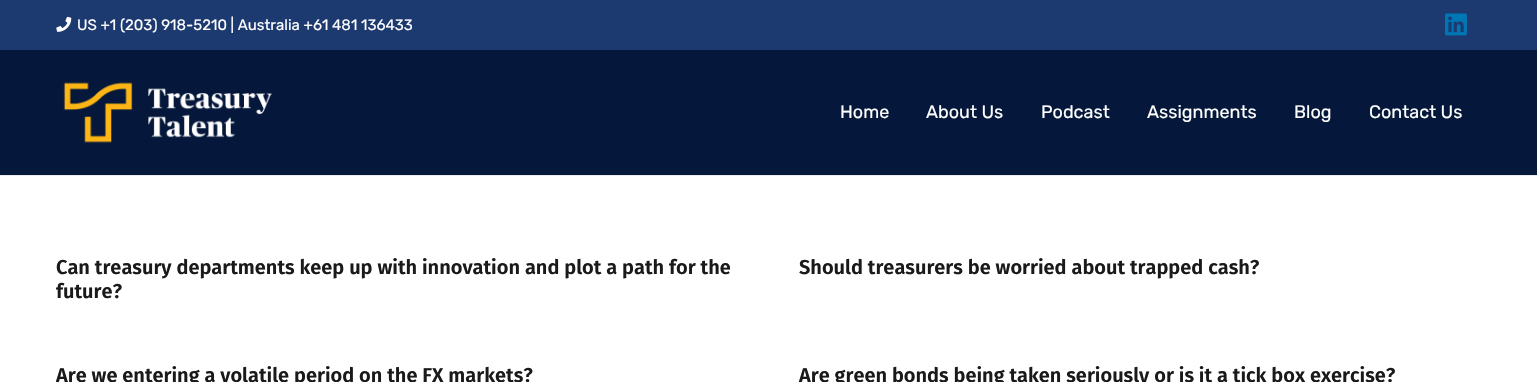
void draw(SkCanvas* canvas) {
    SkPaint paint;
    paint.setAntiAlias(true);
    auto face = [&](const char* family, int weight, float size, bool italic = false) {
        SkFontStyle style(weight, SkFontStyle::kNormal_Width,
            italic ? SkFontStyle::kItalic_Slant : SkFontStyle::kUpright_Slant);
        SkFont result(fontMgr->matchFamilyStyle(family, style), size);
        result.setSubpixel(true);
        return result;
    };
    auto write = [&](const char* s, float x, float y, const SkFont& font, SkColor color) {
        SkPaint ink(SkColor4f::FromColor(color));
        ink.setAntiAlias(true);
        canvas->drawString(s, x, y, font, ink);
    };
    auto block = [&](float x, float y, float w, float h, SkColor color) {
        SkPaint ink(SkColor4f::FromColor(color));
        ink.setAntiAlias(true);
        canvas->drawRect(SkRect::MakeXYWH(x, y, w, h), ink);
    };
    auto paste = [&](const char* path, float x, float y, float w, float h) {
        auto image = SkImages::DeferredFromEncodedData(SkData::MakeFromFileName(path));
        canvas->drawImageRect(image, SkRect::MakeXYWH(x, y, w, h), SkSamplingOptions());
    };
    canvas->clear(SK_ColorWHITE);
    block(0, 0, 1537, 50, SkColorSetRGB(29, 58, 112));
    paste("pic1.png", 56, 16, 16, 16);
    auto kFont1 = face("Rubik", 400, 15);
    write("US +1 (203) 918-5210 | Australia +61 481 136433", 77, 30, kFont1, SK_ColorWHITE);
    paste("pic2.png", 1445, 13, 22, 23);
    paint.setColor(SkColorSetRGB(235, 235, 235));
    canvas->drawPath(SkPathBuilder().moveTo(0, 175).lineTo(0, 176).lineTo(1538, 176).lineTo(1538, 51).lineTo(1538, 175).close().detach(), paint);
    block(0, 50, 1537, 125, SkColorSetRGB(5, 24, 59));
    paste("pic3.png", 63, 82, 210, 61);
    auto kFont2 = face("Rubik", 400, 18);
    write("Home", 840, 118, kFont2, SK_ColorWHITE);
    write("About Us", 926, 118, kFont2, SK_ColorWHITE);
    write("Podcast", 1041, 118, kFont2, SK_ColorWHITE);
    write("Assignments", 1147, 118, kFont2, SK_ColorWHITE);
    write("Blog", 1294, 118, kFont2, SK_ColorWHITE);
    write("Contact Us", 1369, 118, kFont2, SK_ColorWHITE);
    auto kFont3 = face("Fira Sans", 600, 20);
    write("Can treasury departments keep up with innovation and plot a path for the", 56, 274, kFont3, SkColorSetRGB(26, 26, 26));
    write("future?", 56, 298, kFont3, SkColorSetRGB(26, 26, 26));
    write("Should treasurers be worried about trapped cash?", 799, 274, kFont3, SkColorSetRGB(26, 26, 26));
    write("Are we entering a volatile period on the FX markets?", 56, 382, kFont3, SkColorSetRGB(26, 26, 26));
    write("Are green bonds being taken seriously or is it a tick box exercise?", 799, 382, kFont3, SkColorSetRGB(26, 26, 26));
}
